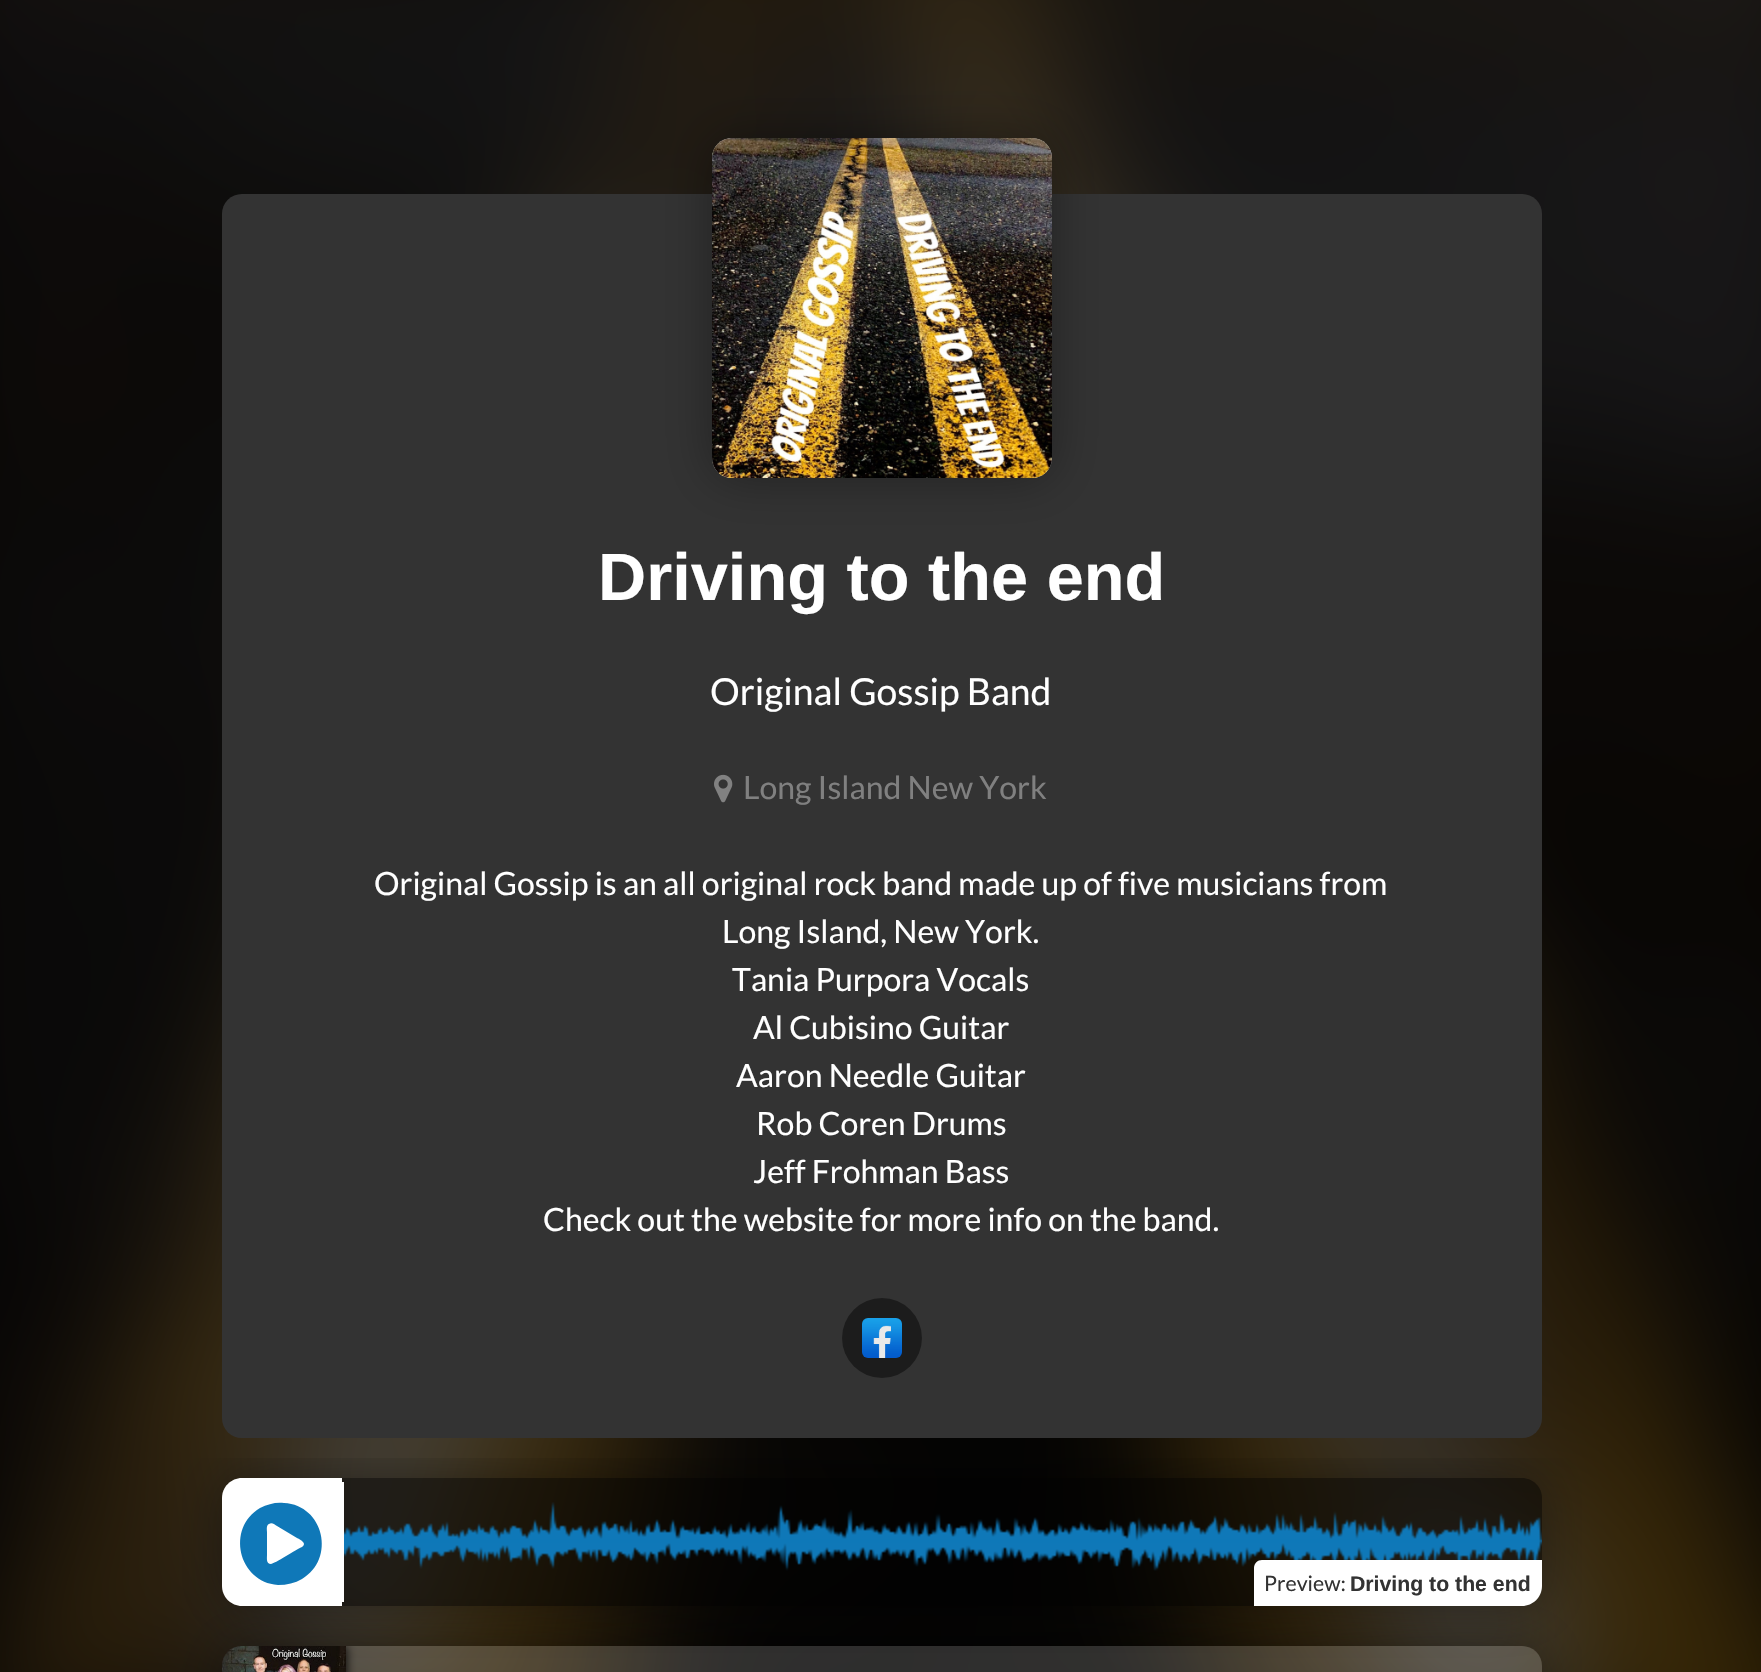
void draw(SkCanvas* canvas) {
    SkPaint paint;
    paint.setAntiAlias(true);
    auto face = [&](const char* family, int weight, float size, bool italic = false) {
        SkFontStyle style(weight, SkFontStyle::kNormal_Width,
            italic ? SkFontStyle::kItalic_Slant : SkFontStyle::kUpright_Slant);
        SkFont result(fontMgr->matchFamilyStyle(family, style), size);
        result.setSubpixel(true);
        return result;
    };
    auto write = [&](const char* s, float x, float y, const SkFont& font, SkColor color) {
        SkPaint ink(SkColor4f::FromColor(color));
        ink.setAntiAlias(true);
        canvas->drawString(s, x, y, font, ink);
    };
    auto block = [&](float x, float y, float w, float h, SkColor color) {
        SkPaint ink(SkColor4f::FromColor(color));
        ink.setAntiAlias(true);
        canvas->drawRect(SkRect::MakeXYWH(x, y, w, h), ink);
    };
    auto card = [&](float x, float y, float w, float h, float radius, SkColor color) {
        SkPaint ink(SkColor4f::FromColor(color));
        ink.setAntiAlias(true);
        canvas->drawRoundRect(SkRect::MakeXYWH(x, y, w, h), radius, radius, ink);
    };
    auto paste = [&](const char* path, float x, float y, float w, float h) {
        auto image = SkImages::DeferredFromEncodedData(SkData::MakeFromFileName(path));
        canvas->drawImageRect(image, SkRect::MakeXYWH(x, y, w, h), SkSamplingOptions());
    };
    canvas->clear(SK_ColorBLACK);
    paste("pic1.png", 0, 0, 1761, 1672);
    card(222, 194, 1320, 1244, 20, SkColorSetRGB(51, 51, 51));
    paint.setColor(SkColorSetARGB(89, 0, 0, 0));
    paint.setMaskFilter(SkMaskFilter::MakeBlur(kNormal_SkBlurStyle, 25));
    canvas->drawRoundRect(SkRect::MakeXYWH(712, 138, 340, 340), 20, 20, paint);
    paint.setMaskFilter(nullptr);
    card(712, 138, 340, 340, 20, SkColorSetRGB(204, 204, 204));
    paste("pic2.png", 712, 138, 340, 340);
    auto kFont1 = face("Liberation Sans", 700, 66.75f);
    write("Driving to the end", 598, 600, kFont1, SK_ColorWHITE);
    auto kFont2 = face("Lato", 400, 37.25f);
    write("Original Gossip Band", 710, 705, kFont2, SK_ColorWHITE);
    paste("pic3.png", 714, 774, 19, 29);
    auto kFont3 = face("Lato", 400, 32);
    write("Long Island New York", 743, 799, kFont3, SkColorSetRGB(128, 128, 128));
    write("Original Gossip is an all original rock band made up of five musicians from", 374, 895, kFont3, SK_ColorWHITE);
    write("Long Island, New York.", 722, 943, kFont3, SK_ColorWHITE);
    write("Tania Purpora Vocals", 732, 991, kFont3, SK_ColorWHITE);
    write("Al Cubisino Guitar", 753, 1039, kFont3, SK_ColorWHITE);
    write("Aaron Needle Guitar", 736, 1087, kFont3, SK_ColorWHITE);
    write("Rob Coren Drums", 756, 1135, kFont3, SK_ColorWHITE);
    write("Jeff Frohman Bass", 753, 1183, kFont3, SK_ColorWHITE);
    write("Check out the website for more info on the band.", 543, 1231, kFont3, SK_ColorWHITE);
    paint.setColor(SkColorSetRGB(28, 28, 28));
    canvas->drawCircle(882, 1338, 40, paint);
    paste("pic4.png", 862, 1318, 40, 40);
    canvas->save();
    canvas->clipRect(SkRect::MakeXYWH(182, 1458, 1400, 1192));
    canvas->clipPath(SkPathBuilder(SkPathFillType::kEvenOdd).moveTo(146, 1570).lineTo(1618, 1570).lineTo(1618, 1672).lineTo(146, 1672).close().moveTo(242, 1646).lineTo(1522, 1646).cubicTo(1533, 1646, 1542, 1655, 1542, 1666).lineTo(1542, 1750).cubicTo(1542, 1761, 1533, 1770, 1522, 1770).lineTo(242, 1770).cubicTo(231, 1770, 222, 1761, 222, 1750).lineTo(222, 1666).cubicTo(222, 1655, 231, 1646, 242, 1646).close().detach(), true);
    paint.setColor(SkColorSetARGB(89, 0, 0, 0));
    paint.setMaskFilter(SkMaskFilter::MakeBlur(kNormal_SkBlurStyle, 25));
    canvas->drawRoundRect(SkRect::MakeXYWH(222, 1646, 1320, 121), 20, 20, paint);
    paint.setMaskFilter(nullptr);
    canvas->restore();
    card(222, 1646, 1320, 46, 20, SkColorSetARGB(43, 255, 255, 255));
    canvas->save();
    canvas->clipPath(SkPathBuilder().moveTo(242, 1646).lineTo(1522, 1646).cubicTo(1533, 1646, 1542, 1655, 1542, 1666).lineTo(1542, 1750).cubicTo(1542, 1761, 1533, 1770, 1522, 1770).lineTo(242, 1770).cubicTo(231, 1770, 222, 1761, 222, 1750).lineTo(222, 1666).cubicTo(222, 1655, 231, 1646, 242, 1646).close().detach(), true);
    paint.setColor(SK_ColorBLACK);
    paint.setMaskFilter(SkMaskFilter::MakeBlur(kNormal_SkBlurStyle, 5));
    canvas->drawRect(SkRect::MakeXYWH(222, 1646, 124, 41), paint);
    paint.setMaskFilter(nullptr);
    canvas->restore();
    paste("pic5.png", 222, 1646, 124, 26);
    canvas->save();
    canvas->clipRect(SkRect::MakeXYWH(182, 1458, 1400, 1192));
    canvas->clipPath(SkPathBuilder(SkPathFillType::kEvenOdd).moveTo(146, 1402).lineTo(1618, 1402).lineTo(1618, 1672).lineTo(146, 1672).close().moveTo(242, 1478).lineTo(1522, 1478).cubicTo(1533, 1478, 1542, 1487, 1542, 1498).lineTo(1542, 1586).cubicTo(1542, 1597, 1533, 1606, 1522, 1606).lineTo(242, 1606).cubicTo(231, 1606, 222, 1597, 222, 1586).lineTo(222, 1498).cubicTo(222, 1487, 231, 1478, 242, 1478).close().detach(), true);
    paint.setColor(SkColorSetARGB(89, 0, 0, 0));
    paint.setMaskFilter(SkMaskFilter::MakeBlur(kNormal_SkBlurStyle, 25));
    canvas->drawRoundRect(SkRect::MakeXYWH(222, 1478, 1320, 128), 20, 20, paint);
    paint.setMaskFilter(nullptr);
    canvas->restore();
    paint.setColor(SK_ColorWHITE);
    canvas->drawPath(SkPathBuilder().moveTo(242, 1478).lineTo(342, 1478).lineTo(342, 1606).lineTo(242, 1606).cubicTo(231, 1606, 222, 1597, 222, 1586).lineTo(222, 1498).cubicTo(222, 1487, 231, 1478, 242, 1478).close().detach(), paint);
    paint.setColor(SkColorSetRGB(15, 120, 184));
    canvas->drawPath(SkPathBuilder().moveTo(260, 1508).cubicTo(268, 1504, 276, 1502, 284, 1503).cubicTo(324, 1505, 336, 1559, 302, 1579).cubicTo(295, 1583, 287, 1585, 278, 1585).cubicTo(238, 1582, 226, 1528, 260, 1508).close().moveTo(302, 1547).cubicTo(308, 1543, 299, 1539, 297, 1538).lineTo(277, 1526).cubicTo(275, 1525, 272, 1522, 269, 1524).cubicTo(266, 1525, 267, 1530, 267, 1532).lineTo(267, 1555).cubicTo(267, 1558, 266, 1564, 271, 1564).cubicTo(274, 1564, 297, 1549, 302, 1547).close().detach(), paint);
    paint.setColor(SkColorSetARGB(128, 0, 0, 0));
    canvas->drawPath(SkPathBuilder().moveTo(342, 1478).lineTo(1522, 1478).cubicTo(1533, 1478, 1542, 1487, 1542, 1498).lineTo(1542, 1586).cubicTo(1542, 1597, 1533, 1606, 1522, 1606).lineTo(342, 1606).close().detach(), paint);
    block(342, 1482, 2, 120, SK_ColorWHITE);
    paste("pic6.png", 344, 1502, 1198, 69);
    paint.setColor(SK_ColorWHITE);
    canvas->drawPath(SkPathBuilder().moveTo(1262, 1560).lineTo(1542, 1560).lineTo(1542, 1586).cubicTo(1542, 1597, 1533, 1606, 1522, 1606).lineTo(1254, 1606).lineTo(1254, 1568).cubicTo(1254, 1563.5f, 1257.5f, 1560, 1262, 1560).close().detach(), paint);
    auto kFont4 = face("Lato", 400, 21.25f);
    write("Preview:", 1264, 1591, kFont4, SkColorSetRGB(51, 51, 51));
    auto kFont5 = face("Liberation Sans", 700, 21.25f);
    write("Driving to the end", 1350, 1591, kFont5, SkColorSetRGB(51, 51, 51));
}
